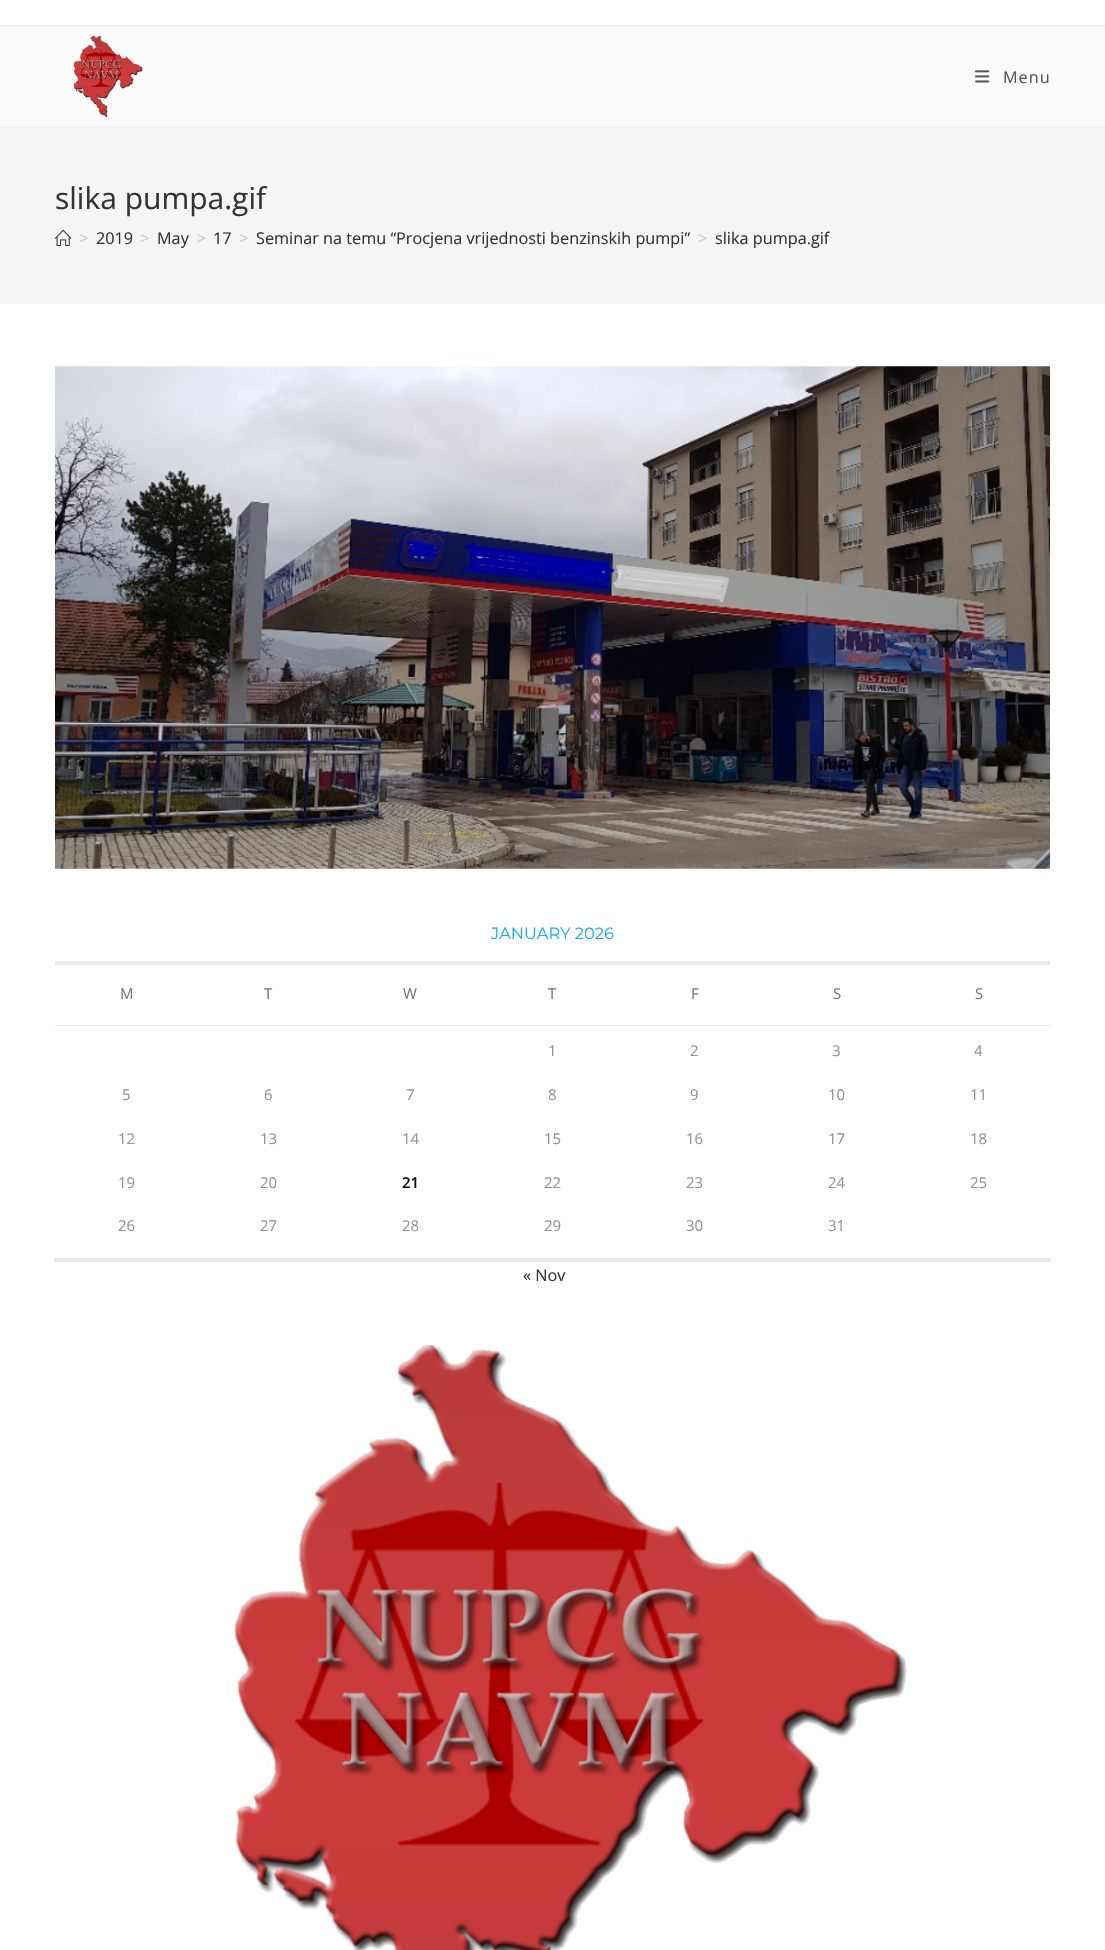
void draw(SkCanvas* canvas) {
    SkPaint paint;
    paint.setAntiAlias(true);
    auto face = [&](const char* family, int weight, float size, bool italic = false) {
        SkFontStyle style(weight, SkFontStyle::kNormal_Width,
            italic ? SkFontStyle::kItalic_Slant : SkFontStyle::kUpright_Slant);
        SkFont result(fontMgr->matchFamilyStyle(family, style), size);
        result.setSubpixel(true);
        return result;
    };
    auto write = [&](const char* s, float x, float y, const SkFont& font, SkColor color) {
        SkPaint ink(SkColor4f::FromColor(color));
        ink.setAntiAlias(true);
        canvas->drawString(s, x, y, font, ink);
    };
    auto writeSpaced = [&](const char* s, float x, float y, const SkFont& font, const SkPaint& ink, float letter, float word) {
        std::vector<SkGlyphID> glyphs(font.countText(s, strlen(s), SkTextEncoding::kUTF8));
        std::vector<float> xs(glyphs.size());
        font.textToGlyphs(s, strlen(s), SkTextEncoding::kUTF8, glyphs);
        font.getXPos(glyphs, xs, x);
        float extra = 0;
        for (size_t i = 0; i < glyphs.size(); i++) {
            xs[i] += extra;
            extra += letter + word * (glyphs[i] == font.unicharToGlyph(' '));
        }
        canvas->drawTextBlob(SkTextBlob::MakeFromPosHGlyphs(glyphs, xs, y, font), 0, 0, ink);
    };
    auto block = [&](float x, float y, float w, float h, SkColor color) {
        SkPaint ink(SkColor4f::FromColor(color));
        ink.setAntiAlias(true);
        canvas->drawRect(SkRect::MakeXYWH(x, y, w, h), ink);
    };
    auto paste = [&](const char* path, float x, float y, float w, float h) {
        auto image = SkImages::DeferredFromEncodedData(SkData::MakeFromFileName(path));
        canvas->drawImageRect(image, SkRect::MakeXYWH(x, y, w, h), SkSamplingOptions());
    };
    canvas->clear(SK_ColorWHITE);
    block(0, 25, 1105, 1, SkColorSetRGB(241, 241, 241));
    block(0, 26, 1105, 100, SkColorSetRGB(251, 251, 251));
    paste("pic1.png", 73, 35, 70, 83);
    paste("pic2.png", 975, 70, 15, 13);
    auto kFont1 = face("Open Sans", 400, 16.25f);
    paint.setColor(SkColorSetRGB(85, 85, 85));
    writeSpaced("Menu", 1003, 83, kFont1, paint, 1, 0);
    block(0, 126, 1105, 178, SkColorSetRGB(245, 245, 245));
    auto kFont2 = face("Open Sans", 400, 30);
    write("slika pumpa.gif", 55, 209, kFont2, SkColorSetRGB(51, 51, 51));
    paste("pic3.png", 55, 229, 17, 17);
    write(">", 79, 244, kFont1, SkColorSetRGB(198, 198, 198));
    write("2019", 96, 244, kFont1, SkColorSetRGB(51, 51, 51));
    write(">", 140, 244, kFont1, SkColorSetRGB(198, 198, 198));
    write("May", 157, 244, kFont1, SkColorSetRGB(51, 51, 51));
    write(">", 197, 244, kFont1, SkColorSetRGB(198, 198, 198));
    write("17", 213, 244, kFont1, SkColorSetRGB(51, 51, 51));
    write(">", 239, 244, kFont1, SkColorSetRGB(198, 198, 198));
    write("Seminar na temu “Procjena vrijednosti benzinskih pumpi”", 256, 244, kFont1, SkColorSetRGB(51, 51, 51));
    write(">", 698, 244, kFont1, SkColorSetRGB(198, 198, 198));
    write("slika pumpa.gif", 715, 244, kFont1, SkColorSetRGB(51, 51, 51));
    paste("pic4.png", 55, 366, 995, 503);
    block(55, 961, 995, 4, SkColorSetRGB(233, 233, 233));
    auto kFont3 = face("Montserrat", 400, 16.25f);
    write("JANUARY 2026", 491, 939, kFont3, SkColorSetRGB(19, 175, 240));
    auto kFont4 = face("Open Sans", 400, 15);
    write("M", 120, 999, kFont4, SkColorSetRGB(119, 119, 119));
    write("T", 264, 999, kFont4, SkColorSetRGB(119, 119, 119));
    write("W", 403, 999, kFont4, SkColorSetRGB(119, 119, 119));
    write("T", 548, 999, kFont4, SkColorSetRGB(119, 119, 119));
    write("F", 691, 999, kFont4, SkColorSetRGB(119, 119, 119));
    write("S", 833, 999, kFont4, SkColorSetRGB(119, 119, 119));
    block(55, 1025, 995, 1, SkColorSetRGB(233, 233, 233));
    write("S", 975, 999, kFont4, SkColorSetRGB(119, 119, 119));
    block(54, 1258, 997, 4, SkColorSetRGB(233, 233, 233));
    write("1", 548, 1056, kFont4, SkColorSetRGB(146, 146, 146));
    write("2", 690, 1056, kFont4, SkColorSetRGB(146, 146, 146));
    write("3", 832, 1056, kFont4, SkColorSetRGB(146, 146, 146));
    write("4", 974, 1056, kFont4, SkColorSetRGB(146, 146, 146));
    write("5", 122, 1100, kFont4, SkColorSetRGB(146, 146, 146));
    write("6", 264, 1100, kFont4, SkColorSetRGB(146, 146, 146));
    write("7", 406, 1100, kFont4, SkColorSetRGB(146, 146, 146));
    write("8", 548, 1100, kFont4, SkColorSetRGB(146, 146, 146));
    write("9", 690, 1100, kFont4, SkColorSetRGB(146, 146, 146));
    write("10", 828, 1100, kFont4, SkColorSetRGB(146, 146, 146));
    write("11", 970, 1100, kFont4, SkColorSetRGB(146, 146, 146));
    write("12", 118, 1144, kFont4, SkColorSetRGB(146, 146, 146));
    write("13", 260, 1144, kFont4, SkColorSetRGB(146, 146, 146));
    write("14", 402, 1144, kFont4, SkColorSetRGB(146, 146, 146));
    write("15", 544, 1144, kFont4, SkColorSetRGB(146, 146, 146));
    write("16", 686, 1144, kFont4, SkColorSetRGB(146, 146, 146));
    write("17", 828, 1144, kFont4, SkColorSetRGB(146, 146, 146));
    write("18", 970, 1144, kFont4, SkColorSetRGB(146, 146, 146));
    write("19", 118, 1188, kFont4, SkColorSetRGB(146, 146, 146));
    write("20", 260, 1188, kFont4, SkColorSetRGB(146, 146, 146));
    auto kFont5 = face("Open Sans", 600, 15);
    write("21", 402, 1188, kFont5, SkColorSetRGB(17, 17, 17));
    write("22", 544, 1188, kFont4, SkColorSetRGB(146, 146, 146));
    write("23", 686, 1188, kFont4, SkColorSetRGB(146, 146, 146));
    write("24", 828, 1188, kFont4, SkColorSetRGB(146, 146, 146));
    write("25", 970, 1188, kFont4, SkColorSetRGB(146, 146, 146));
    write("26", 118, 1231, kFont4, SkColorSetRGB(146, 146, 146));
    write("27", 260, 1231, kFont4, SkColorSetRGB(146, 146, 146));
    write("28", 402, 1231, kFont4, SkColorSetRGB(146, 146, 146));
    write("29", 544, 1231, kFont4, SkColorSetRGB(146, 146, 146));
    write("30", 686, 1231, kFont4, SkColorSetRGB(146, 146, 146));
    write("31", 828, 1231, kFont4, SkColorSetRGB(146, 146, 146));
    write("« Nov", 523, 1281, kFont1, SkColorSetRGB(51, 51, 51));
    paste("pic5.png", 235, 1345, 672, 605);
}
